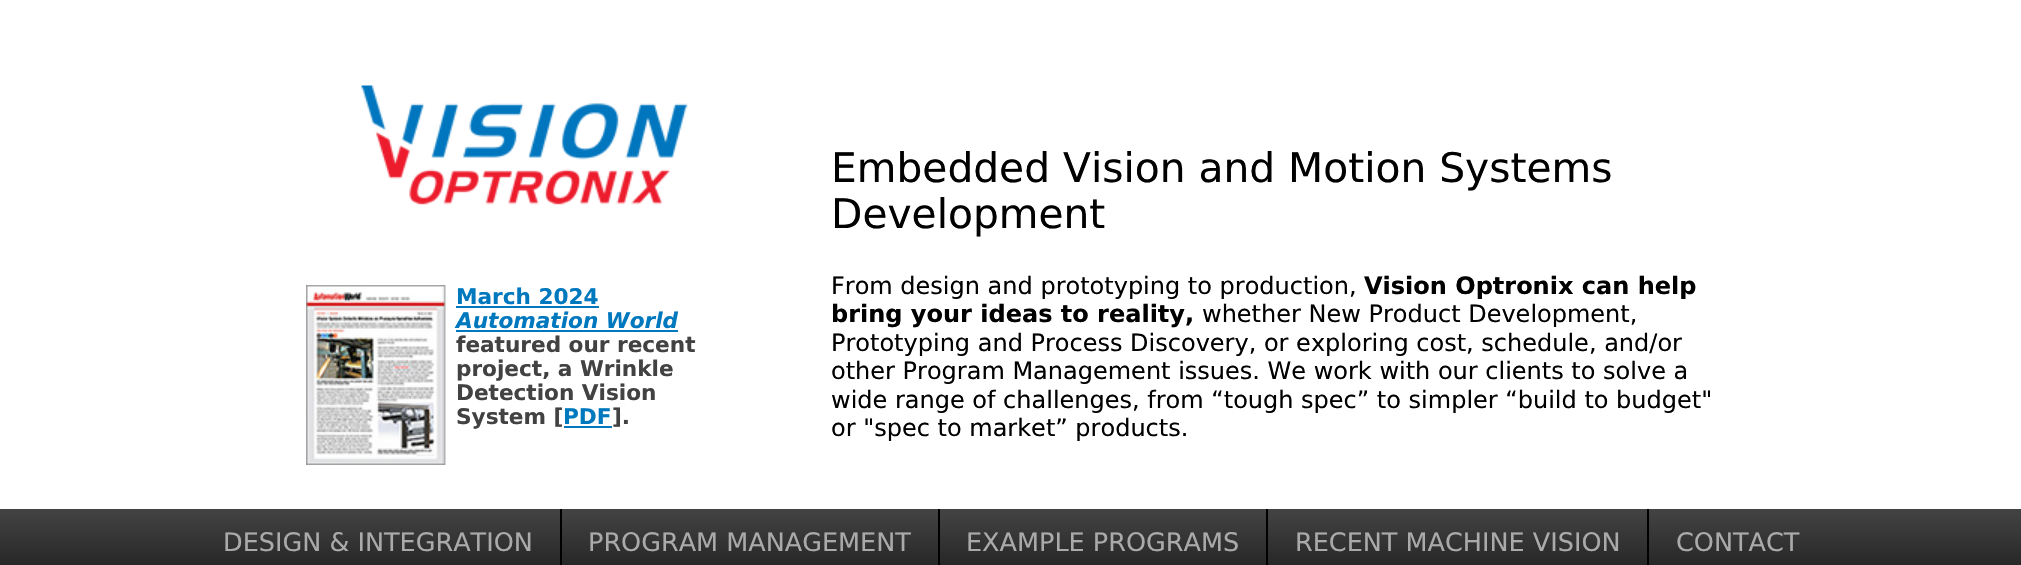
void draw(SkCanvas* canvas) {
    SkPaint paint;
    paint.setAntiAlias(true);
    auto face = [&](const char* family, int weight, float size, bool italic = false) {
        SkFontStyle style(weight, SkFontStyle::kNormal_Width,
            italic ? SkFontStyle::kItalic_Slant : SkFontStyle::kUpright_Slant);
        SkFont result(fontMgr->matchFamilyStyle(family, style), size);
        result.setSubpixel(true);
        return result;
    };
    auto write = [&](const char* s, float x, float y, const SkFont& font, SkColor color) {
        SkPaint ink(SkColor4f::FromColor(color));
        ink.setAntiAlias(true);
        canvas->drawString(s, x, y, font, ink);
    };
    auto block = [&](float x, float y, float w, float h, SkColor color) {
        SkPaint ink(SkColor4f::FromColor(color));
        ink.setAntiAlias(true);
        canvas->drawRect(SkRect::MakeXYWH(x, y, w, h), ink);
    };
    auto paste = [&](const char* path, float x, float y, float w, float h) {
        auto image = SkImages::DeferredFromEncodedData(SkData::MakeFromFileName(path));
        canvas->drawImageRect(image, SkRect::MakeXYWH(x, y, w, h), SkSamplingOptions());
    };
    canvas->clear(SK_ColorWHITE);
    paste("pic1.png", 361, 85, 327, 120);
    paste("pic2.png", 306, 285, 140, 180);
    auto kFont1 = face("DejaVu Sans", 700, 21.6f);
    write("March 2024", 456, 304, kFont1, SkColorSetRGB(0, 120, 190));
    block(456, 306, 143, 2, SkColorSetRGB(0, 120, 190));
    auto kFont2 = face("DejaVu Sans", 700, 21.6f, true);
    write("Automation World", 456, 328, kFont2, SkColorSetRGB(0, 120, 190));
    block(456, 330, 222, 2, SkColorSetRGB(0, 120, 190));
    write("featured our recent", 456, 352, kFont1, SkColorSetRGB(66, 66, 66));
    write("project, a Wrinkle", 456, 376, kFont1, SkColorSetRGB(66, 66, 66));
    write("Detection Vision", 456, 400, kFont1, SkColorSetRGB(66, 66, 66));
    write("System [", 456, 424, kFont1, SkColorSetRGB(66, 66, 66));
    write("PDF", 563, 424, kFont1, SkColorSetRGB(0, 120, 190));
    block(564, 426, 48, 2, SkColorSetRGB(0, 120, 190));
    write("].", 612, 424, kFont1, SkColorSetRGB(66, 66, 66));
    auto kFont3 = face("DejaVu Sans", 400, 40.75f);
    write("Embedded Vision and Motion Systems", 831, 182, kFont3, SK_ColorBLACK);
    write("Development", 831, 228, kFont3, SK_ColorBLACK);
    auto kFont4 = face("DejaVu Sans", 400, 24);
    write("From design and prototyping to production,", 831, 294, kFont4, SK_ColorBLACK);
    auto kFont5 = face("DejaVu Sans", 700, 24);
    write("Vision Optronix can help", 1364, 294, kFont5, SK_ColorBLACK);
    write("bring your ideas to reality,", 831, 322, kFont5, SK_ColorBLACK);
    write("whether New Product Development,", 1202, 322, kFont4, SK_ColorBLACK);
    write("Prototyping and Process Discovery, or exploring cost, schedule, and/or", 831, 351, kFont4, SK_ColorBLACK);
    write("other Program Management issues. We work with our clients to solve a", 831, 379, kFont4, SK_ColorBLACK);
    write("wide range of challenges, from “tough spec” to simpler “build to budget\"", 831, 408, kFont4, SK_ColorBLACK);
    write("or \"spec to market” products.", 831, 436, kFont4, SK_ColorBLACK);
    {
        const SkColor colors[] = {SkColorSetRGB(68, 68, 68), SkColorSetRGB(34, 34, 34)};
        const float stops[] = {0, 1};
        const SkPoint ends[] = {{1011, 508}, {1011, 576}};
        paint.setShader(SkGradientShader::MakeLinear(ends, colors, stops, 2, SkTileMode::kClamp));
        paint.setAlpha(255);
    }
    canvas->drawRect(SkRect::MakeXYWH(0, 509, 2021, 56), paint);
    auto kFont6 = face("DejaVu Sans", 400, 25.5f);
    write("DESIGN & INTEGRATION", 223, 551, kFont6, SkColorSetRGB(170, 170, 170));
    block(560, 509, 2, 56, SK_ColorBLACK);
    write("PROGRAM MANAGEMENT", 588, 551, kFont6, SkColorSetRGB(170, 170, 170));
    block(938, 509, 2, 56, SK_ColorBLACK);
    write("EXAMPLE PROGRAMS", 966, 551, kFont6, SkColorSetRGB(170, 170, 170));
    block(1266, 509, 2, 56, SK_ColorBLACK);
    write("RECENT MACHINE VISION", 1295, 551, kFont6, SkColorSetRGB(170, 170, 170));
    block(1647, 509, 2, 56, SK_ColorBLACK);
    write("CONTACT", 1676, 551, kFont6, SkColorSetRGB(170, 170, 170));
}
